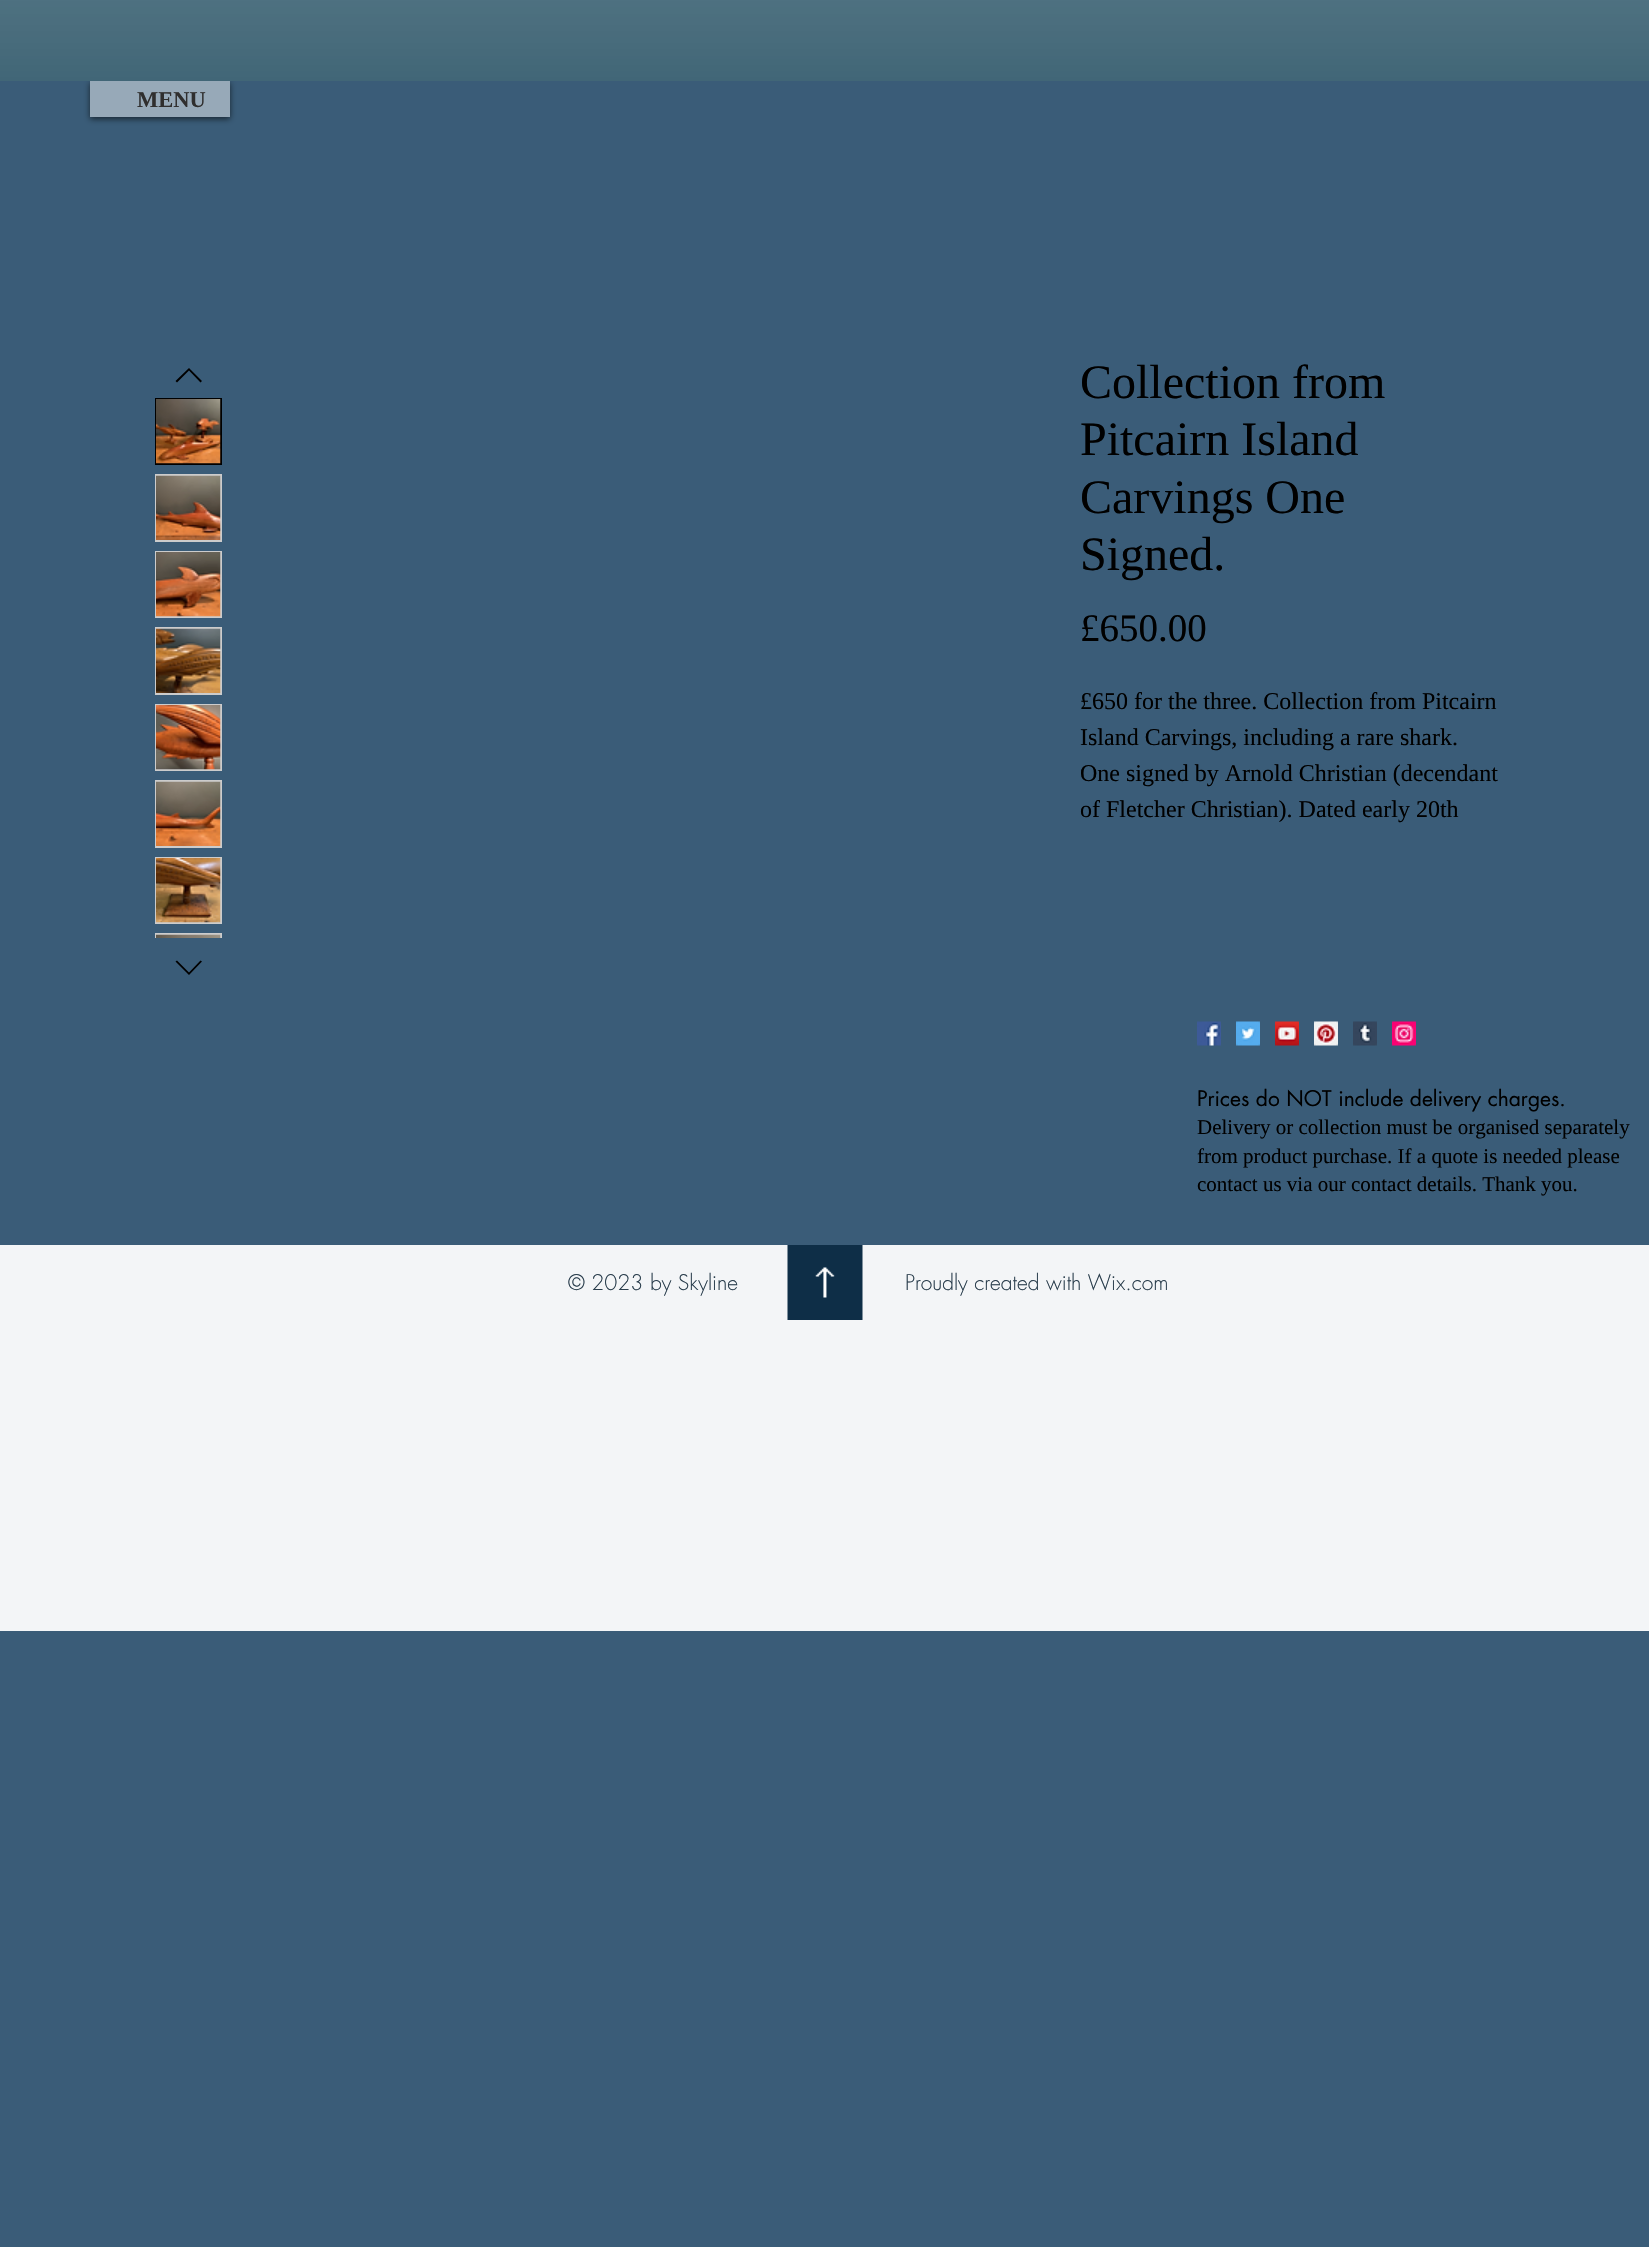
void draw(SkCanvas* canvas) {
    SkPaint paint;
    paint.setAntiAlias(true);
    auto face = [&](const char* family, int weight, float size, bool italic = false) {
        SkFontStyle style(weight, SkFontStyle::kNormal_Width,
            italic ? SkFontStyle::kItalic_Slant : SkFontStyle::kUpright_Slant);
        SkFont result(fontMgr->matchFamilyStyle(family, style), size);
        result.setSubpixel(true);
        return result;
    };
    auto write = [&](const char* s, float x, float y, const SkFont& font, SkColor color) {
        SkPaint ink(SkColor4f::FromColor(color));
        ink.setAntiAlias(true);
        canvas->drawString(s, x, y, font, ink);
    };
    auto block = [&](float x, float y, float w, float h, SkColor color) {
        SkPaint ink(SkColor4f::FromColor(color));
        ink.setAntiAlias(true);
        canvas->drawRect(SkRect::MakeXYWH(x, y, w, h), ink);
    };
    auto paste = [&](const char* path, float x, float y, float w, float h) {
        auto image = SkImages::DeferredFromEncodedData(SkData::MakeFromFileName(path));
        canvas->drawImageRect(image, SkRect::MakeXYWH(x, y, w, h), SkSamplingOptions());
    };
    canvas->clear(SkColorSetRGB(58, 92, 120));
    canvas->save();
    canvas->clipPath(SkPathBuilder(SkPathFillType::kEvenOdd).moveTo(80, 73).lineTo(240, 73).lineTo(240, 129).lineTo(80, 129).close().moveTo(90, 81).lineTo(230, 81).lineTo(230, 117).lineTo(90, 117).close().detach(), true);
    paint.setColor(SkColorSetARGB(153, 0, 0, 0));
    paint.setMaskFilter(SkMaskFilter::MakeBlur(kNormal_SkBlurStyle, 3));
    canvas->drawRect(SkRect::MakeXYWH(90, 83, 140, 36), paint);
    paint.setMaskFilter(nullptr);
    canvas->restore();
    block(0, 0, 1649, 81, SkColorSetRGB(16, 63, 84));
    paste("pic1.png", 0, 0, 1649, 81);
    block(90, 81, 140, 36, SkColorSetARGB(120, 255, 255, 255));
    auto kFont1 = face("Liberation Serif", 700, 22.5f);
    write("MENU", 137, 107, kFont1, SkColorSetRGB(47, 46, 46));
    paint.setColor(SK_ColorBLACK);
    canvas->drawPath(SkPathBuilder(SkPathFillType::kEvenOdd).moveTo(189, 368).lineTo(202, 381).lineTo(200.5f, 382.5f).lineTo(189, 370.5f).lineTo(177, 382.5f).lineTo(175.5f, 381).close().detach(), paint);
    paint.setStyle(SkPaint::kStroke_Style);
    paint.setStrokeWidth(2);
    canvas->drawRect(SkRect::MakeXYWH(156, 399, 65, 65), paint);
    paste("pic2.png", 156, 399, 65, 65);
    block(155, 474, 67, 68, SkColorSetRGB(204, 204, 204));
    paste("pic3.png", 156, 475, 65, 65);
    block(155, 551, 67, 67, SkColorSetRGB(204, 204, 204));
    paste("pic4.png", 156, 552, 65, 65);
    block(155, 627, 67, 68, SkColorSetRGB(204, 204, 204));
    paste("pic5.png", 156, 628, 65, 65);
    block(155, 704, 67, 67, SkColorSetRGB(204, 204, 204));
    paste("pic6.png", 156, 705, 65, 65);
    block(155, 780, 67, 68, SkColorSetRGB(204, 204, 204));
    paste("pic7.png", 156, 781, 65, 65);
    block(155, 857, 67, 67, SkColorSetRGB(204, 204, 204));
    paste("pic8.png", 156, 858, 65, 65);
    block(155, 933, 67, 5, SkColorSetRGB(204, 204, 204));
    paste("pic9.png", 156, 934, 65, 4);
    paint.setStyle(SkPaint::kFill_Style);
    canvas->drawPath(SkPathBuilder(SkPathFillType::kEvenOdd).moveTo(200.5f, 960.5f).lineTo(202, 961.5f).lineTo(189, 975).lineTo(175.5f, 961.5f).lineTo(177, 960.5f).lineTo(189, 972.5f).close().detach(), paint);
    auto kFont2 = face("Liberation Serif", 400, 48);
    write("Collection from", 1080, 398, kFont2, SK_ColorBLACK);
    write("Pitcairn Island", 1080, 455, kFont2, SK_ColorBLACK);
    write("Carvings One", 1080, 513, kFont2, SK_ColorBLACK);
    write("Signed.", 1080, 570, kFont2, SK_ColorBLACK);
    auto kFont3 = face("Liberation Serif", 400, 39);
    write("£650.00", 1080, 641, kFont3, SK_ColorBLACK);
    auto kFont4 = face("Liberation Serif", 400, 24);
    write("£650 for the three. Collection from Pitcairn", 1080, 709, kFont4, SK_ColorBLACK);
    write("Island Carvings, including a rare shark.", 1080, 745, kFont4, SK_ColorBLACK);
    write("One signed by Arnold Christian (decendant", 1080, 781, kFont4, SK_ColorBLACK);
    write("of Fletcher Christian). Dated early 20th", 1080, 817, kFont4, SK_ColorBLACK);
    paste("pic10.png", 1197, 1021, 24, 25);
    paste("pic11.png", 1236, 1021, 24, 25);
    paste("pic12.png", 1275, 1021, 24, 25);
    paste("pic13.png", 1314, 1021, 24, 25);
    paste("pic14.png", 1353, 1021, 24, 25);
    paste("pic15.png", 1392, 1021, 24, 25);
    auto kFont5 = face("futura", 400, 21);
    write("Prices do NOT include delivery charges.", 1197, 1106, kFont5, SK_ColorBLACK);
    auto kFont6 = face("Liberation Serif", 400, 21);
    write("Delivery or collection must be organised separately", 1197, 1134, kFont6, SK_ColorBLACK);
    write("from product purchase. If a quote is needed please", 1197, 1163, kFont6, SK_ColorBLACK);
    write("contact us via our contact details. Thank you.", 1197, 1191, kFont6, SK_ColorBLACK);
    block(0, 1245, 1649, 386, SkColorSetRGB(243, 245, 247));
    auto kFont7 = face("futura", 300, 21);
    write("© 2023 by Skyline", 568, 1290, kFont7, SkColorSetRGB(42, 62, 77));
    paste("pic16.png", 787, 1245, 76, 75);
    write("Proudly created with Wix.com", 905, 1290, kFont7, SkColorSetRGB(42, 62, 77));
}
